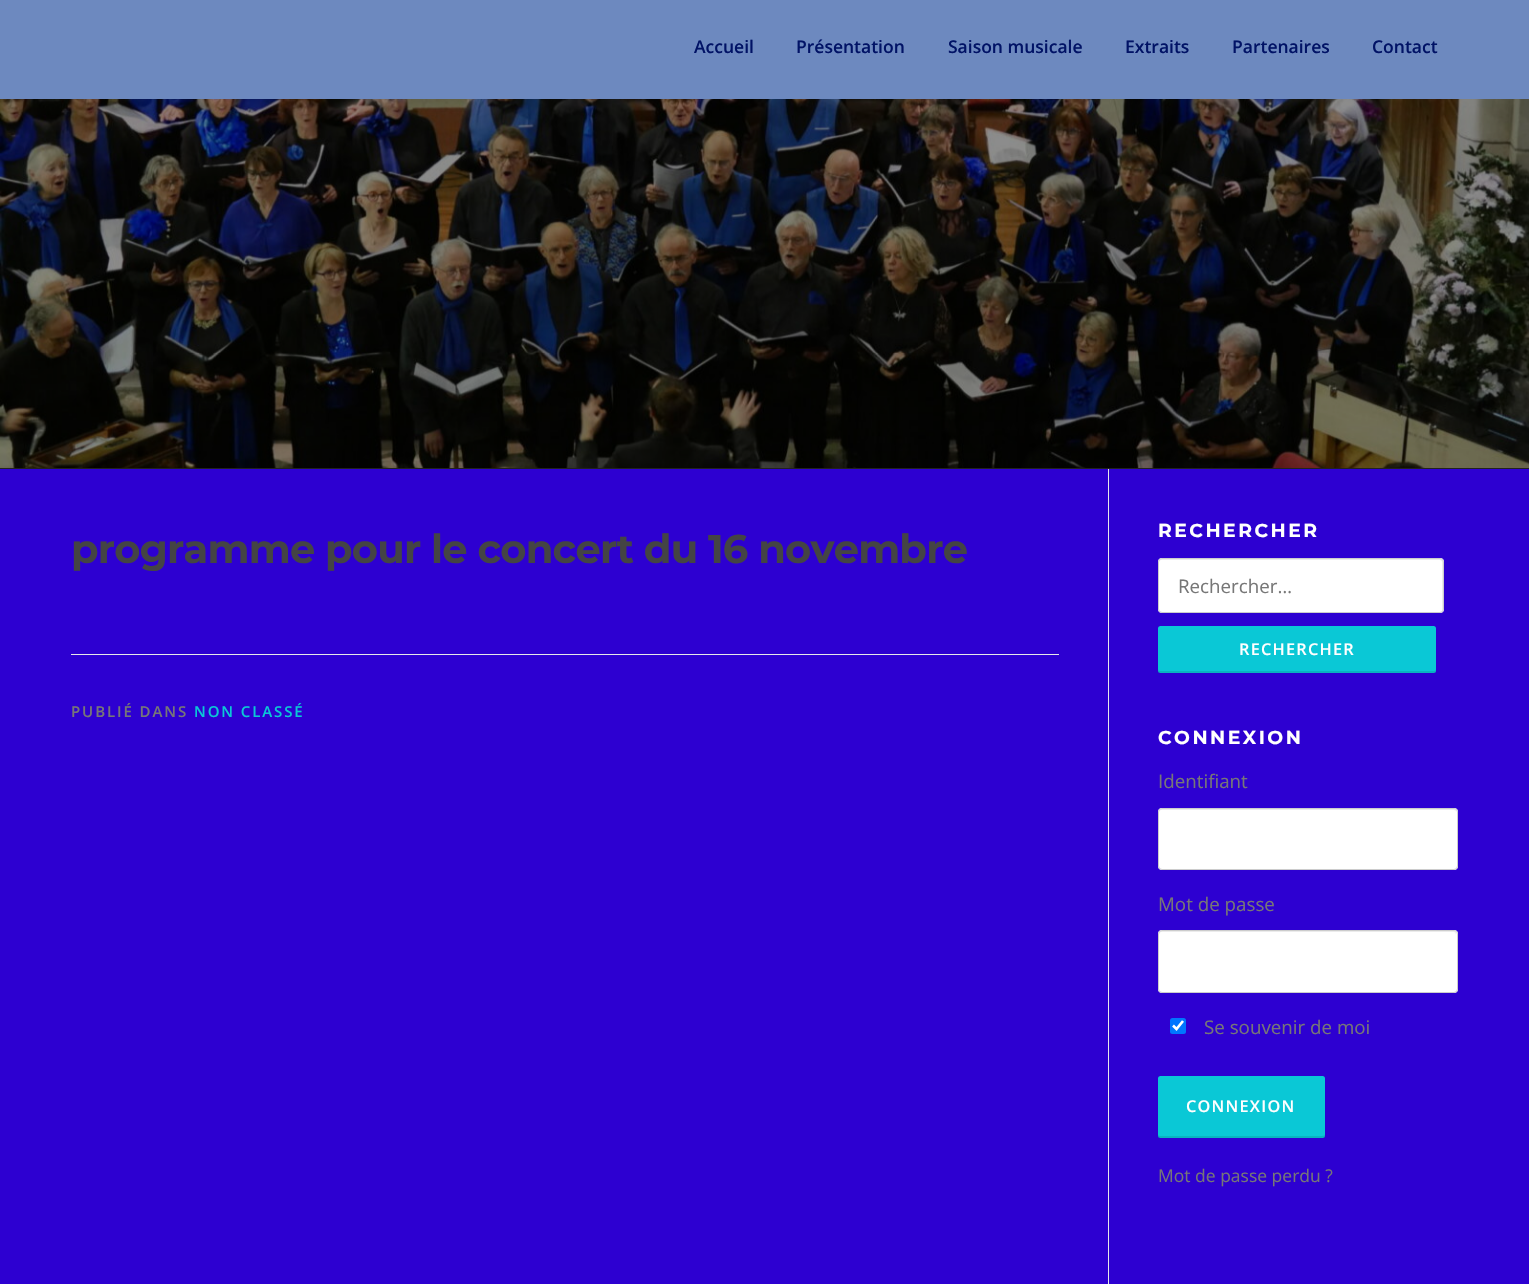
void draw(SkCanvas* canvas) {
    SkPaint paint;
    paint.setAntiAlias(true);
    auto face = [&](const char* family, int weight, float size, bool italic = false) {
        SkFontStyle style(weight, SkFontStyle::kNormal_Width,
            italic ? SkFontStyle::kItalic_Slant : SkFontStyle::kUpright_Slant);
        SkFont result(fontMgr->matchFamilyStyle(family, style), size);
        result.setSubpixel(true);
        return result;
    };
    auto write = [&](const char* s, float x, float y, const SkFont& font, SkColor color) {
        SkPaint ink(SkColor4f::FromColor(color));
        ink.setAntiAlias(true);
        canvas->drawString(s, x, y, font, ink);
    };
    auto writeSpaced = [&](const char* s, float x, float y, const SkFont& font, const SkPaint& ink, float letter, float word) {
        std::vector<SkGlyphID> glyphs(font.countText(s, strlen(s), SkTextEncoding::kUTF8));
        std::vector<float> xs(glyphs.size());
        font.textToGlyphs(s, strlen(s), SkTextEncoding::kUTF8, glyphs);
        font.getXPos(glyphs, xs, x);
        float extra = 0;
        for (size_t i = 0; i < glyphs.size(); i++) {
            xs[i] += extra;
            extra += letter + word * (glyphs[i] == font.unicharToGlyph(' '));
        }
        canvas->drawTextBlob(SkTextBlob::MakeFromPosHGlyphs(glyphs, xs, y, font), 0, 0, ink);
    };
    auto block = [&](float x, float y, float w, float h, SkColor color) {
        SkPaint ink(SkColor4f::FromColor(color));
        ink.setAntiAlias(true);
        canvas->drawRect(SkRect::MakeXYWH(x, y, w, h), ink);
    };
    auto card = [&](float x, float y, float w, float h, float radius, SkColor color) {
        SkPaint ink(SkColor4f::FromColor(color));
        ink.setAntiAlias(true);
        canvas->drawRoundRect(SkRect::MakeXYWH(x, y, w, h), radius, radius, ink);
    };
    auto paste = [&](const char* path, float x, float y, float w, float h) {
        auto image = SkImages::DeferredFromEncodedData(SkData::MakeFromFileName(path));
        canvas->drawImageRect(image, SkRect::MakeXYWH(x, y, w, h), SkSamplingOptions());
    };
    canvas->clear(SkColorSetRGB(45, 0, 209));
    block(0, 0, 1529, 99, SkColorSetRGB(109, 137, 191));
    auto kFont1 = face("Open Sans", 600, 17.5f);
    write("Accueil", 694, 53, kFont1, SkColorSetRGB(1, 19, 102));
    write("Présentation", 796, 53, kFont1, SkColorSetRGB(1, 19, 102));
    write("Saison musicale", 948, 53, kFont1, SkColorSetRGB(1, 19, 102));
    write("Extraits", 1125, 53, kFont1, SkColorSetRGB(1, 19, 102));
    write("Partenaires", 1232, 53, kFont1, SkColorSetRGB(1, 19, 102));
    write("Contact", 1372, 53, kFont1, SkColorSetRGB(1, 19, 102));
    block(0, 468, 1529, 1, SkColorSetRGB(34, 34, 34));
    paste("pic1.png", 0, 99, 1529, 369);
    auto kFont2 = face("Montserrat", 700, 40);
    paint.setColor(SkColorSetRGB(68, 68, 68));
    writeSpaced("programme pour le concert du 16 novembre", 71, 563, kFont2, paint, -0.75f, 0);
    block(71, 654, 988, 1, SkColorSetRGB(233, 233, 233));
    auto kFont3 = face("Open Sans", 600, 15);
    paint.setColor(SkColorSetRGB(119, 119, 119));
    writeSpaced("PUBLIÉ DANS", 71, 717, kFont3, paint, 1.9f, 0);
    paint.setColor(SkColorSetRGB(10, 200, 214));
    writeSpaced("NON CLASSÉ", 194, 717, kFont3, paint, 1.9f, 0);
    block(1108, 469, 1, 815, SkColorSetRGB(233, 233, 233));
    auto kFont4 = face("Montserrat", 700, 18.75f);
    paint.setColor(SK_ColorWHITE);
    writeSpaced("RECHERCHER", 1158, 537, kFont4, paint, 2.5f, 0);
    card(1158, 558, 286, 55, 4, SK_ColorWHITE);
    paint.setColor(SkColorSetRGB(235, 235, 235));
    canvas->drawPath(SkPathBuilder().moveTo(1161, 560).lineTo(1440, 560).cubicTo(1441, 560, 1442, 561, 1442, 562).lineTo(1442, 611).cubicTo(1443, 610, 1443, 609, 1443, 608).lineTo(1443, 562).cubicTo(1443, 560, 1442, 559, 1440, 559).lineTo(1162, 559).cubicTo(1160, 559, 1159, 560, 1159, 562).cubicTo(1159, 561, 1160, 560, 1161, 560).close().detach(), paint);
    paint.setStyle(SkPaint::kStroke_Style);
    paint.setStrokeWidth(1);
    paint.setColor(SkColorSetRGB(204, 204, 204));
    canvas->drawRoundRect(SkRect::MakeXYWH(1158.5f, 558.5f, 285, 54), 3.5f, 3.5f, paint);
    auto kFont5 = face("Open Sans", 400, 18.75f);
    write("Rechercher…", 1178, 593, kFont5, SkColorSetRGB(119, 119, 119));
    card(1158, 626, 278, 47, 2.5f, SkColorSetRGB(10, 200, 214));
    paint.setStyle(SkPaint::kFill_Style);
    paint.setColor(SkColorSetARGB(26, 0, 0, 0));
    canvas->drawPath(SkPathBuilder().moveTo(1158, 669).lineTo(1158, 670).cubicTo(1158, 672, 1159, 673, 1160, 673).lineTo(1434, 673).cubicTo(1435, 673, 1436, 672, 1436, 670).lineTo(1436, 669).cubicTo(1436, 670, 1435, 671, 1434, 671).lineTo(1160, 671).cubicTo(1159, 671, 1158, 670, 1158, 669).close().detach(), paint);
    auto kFont6 = face("Open Sans", 600, 16.25f);
    paint.setColor(SK_ColorWHITE);
    writeSpaced("RECHERCHER", 1239, 655, kFont6, paint, 1.25f, 0);
    writeSpaced("CONNEXION", 1158, 744, kFont4, paint, 2.5f, 0);
    write("Identifiant", 1158, 788, kFont5, SkColorSetRGB(119, 119, 119));
    card(1158, 808, 300, 62, 4, SK_ColorWHITE);
    paint.setColor(SkColorSetRGB(235, 235, 235));
    canvas->drawPath(SkPathBuilder().moveTo(1161, 810).lineTo(1454, 810).cubicTo(1455, 810, 1456, 811, 1456, 812).cubicTo(1456, 810, 1455, 809, 1454, 809).lineTo(1161, 809).lineTo(1159, 811).lineTo(1159, 812).cubicTo(1159, 811, 1160, 810, 1161, 810).close().detach(), paint);
    paint.setStyle(SkPaint::kStroke_Style);
    paint.setColor(SkColorSetRGB(204, 204, 204));
    canvas->drawRoundRect(SkRect::MakeXYWH(1158.5f, 808.5f, 299, 61), 3.5f, 3.5f, paint);
    write("Mot de passe", 1158, 911, kFont5, SkColorSetRGB(119, 119, 119));
    card(1158, 930, 300, 63, 4, SK_ColorWHITE);
    paint.setStyle(SkPaint::kFill_Style);
    paint.setColor(SkColorSetRGB(235, 235, 235));
    canvas->drawPath(SkPathBuilder().moveTo(1161, 932).lineTo(1454, 932).cubicTo(1455, 932, 1456, 934, 1456, 935).cubicTo(1456, 933, 1456, 931, 1454, 931).lineTo(1162, 931).cubicTo(1159, 931, 1159, 933, 1159, 935).cubicTo(1159, 934, 1160, 932, 1161, 932).close().detach(), paint);
    paint.setStyle(SkPaint::kStroke_Style);
    paint.setColor(SkColorSetRGB(204, 204, 204));
    canvas->drawRoundRect(SkRect::MakeXYWH(1158.5f, 930.5f, 299, 62), 3.5f, 3.5f, paint);
    card(1170, 1018, 16, 16, 2.5f, SkColorSetRGB(0, 117, 255));
    paint.setStrokeWidth(2.6f);
    paint.setColor(SK_ColorWHITE);
    canvas->drawPath(SkPathBuilder().moveTo(1173, 1025.5f).lineTo(1176.5f, 1029).lineTo(1183, 1021).detach(), paint);
    write("Se souvenir de moi", 1204, 1034, kFont5, SkColorSetRGB(119, 119, 119));
    card(1158, 1076, 167, 62, 2.5f, SkColorSetRGB(10, 200, 214));
    paint.setStyle(SkPaint::kFill_Style);
    paint.setColor(SkColorSetARGB(26, 0, 0, 0));
    canvas->drawPath(SkPathBuilder().moveTo(1158, 1134).lineTo(1158, 1136).cubicTo(1158, 1137, 1159, 1138, 1160, 1138).lineTo(1322, 1138).cubicTo(1324, 1138, 1325, 1137, 1325, 1136).lineTo(1325, 1134).cubicTo(1325, 1135, 1324, 1136, 1322, 1136).lineTo(1160, 1136).cubicTo(1159, 1136, 1158, 1135, 1158, 1134).close().detach(), paint);
    paint.setColor(SK_ColorWHITE);
    writeSpaced("CONNEXION", 1186, 1112, kFont6, paint, 1.25f, 0);
    auto kFont7 = face("Open Sans", 400, 17.5f);
    write("Mot de passe perdu ?", 1158, 1182, kFont7, SkColorSetRGB(119, 119, 119));
}
